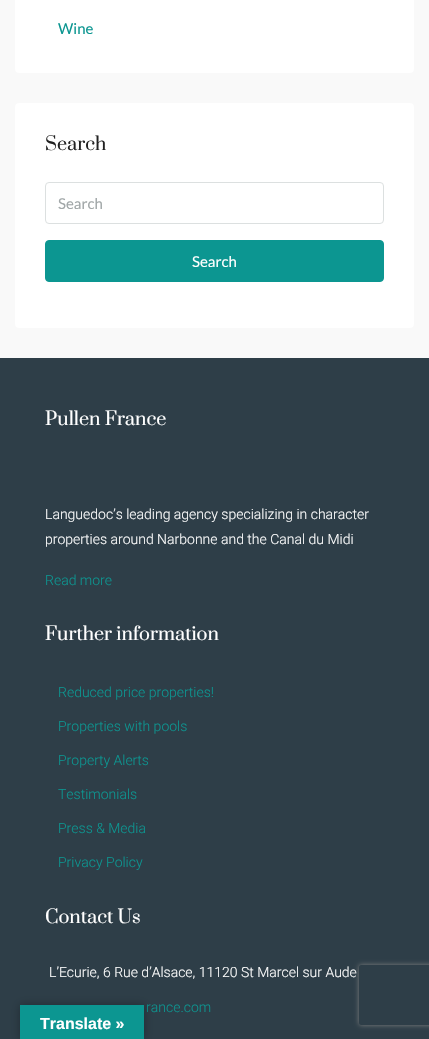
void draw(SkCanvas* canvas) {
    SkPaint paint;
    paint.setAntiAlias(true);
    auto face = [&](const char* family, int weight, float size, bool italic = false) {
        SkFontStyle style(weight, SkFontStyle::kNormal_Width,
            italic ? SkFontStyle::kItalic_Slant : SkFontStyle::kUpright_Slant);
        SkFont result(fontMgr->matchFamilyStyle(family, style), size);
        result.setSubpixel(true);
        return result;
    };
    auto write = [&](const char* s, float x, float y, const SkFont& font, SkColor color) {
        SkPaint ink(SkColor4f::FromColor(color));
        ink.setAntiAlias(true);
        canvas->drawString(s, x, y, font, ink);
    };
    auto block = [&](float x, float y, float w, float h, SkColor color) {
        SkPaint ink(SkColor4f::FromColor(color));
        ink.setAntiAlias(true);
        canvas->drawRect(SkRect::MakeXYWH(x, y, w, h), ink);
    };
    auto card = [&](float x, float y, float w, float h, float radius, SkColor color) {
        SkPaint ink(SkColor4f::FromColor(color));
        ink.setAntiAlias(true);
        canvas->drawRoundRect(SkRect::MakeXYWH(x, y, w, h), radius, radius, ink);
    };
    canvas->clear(SkColorSetRGB(249, 249, 249));
    card(15, -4, 399, 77, 4, SK_ColorWHITE);
    auto kFont1 = face("Lato", 400, 15);
    write("Wine", 58, 34, kFont1, SkColorSetRGB(12, 150, 145));
    card(15, 103, 399, 225, 4, SK_ColorWHITE);
    auto kFont2 = face("Prata", 400, 18);
    write("Search", 45, 150, kFont2, SkColorSetRGB(34, 34, 34));
    paint.setStyle(SkPaint::kStroke_Style);
    paint.setStrokeWidth(1);
    paint.setColor(SkColorSetRGB(220, 224, 224));
    canvas->drawRoundRect(SkRect::MakeXYWH(45.5f, 182.5f, 338, 41), 3.5f, 3.5f, paint);
    write("Search", 58, 209, kFont1, SkColorSetRGB(161, 167, 168));
    paint.setStyle(SkPaint::kFill_Style);
    paint.setColor(SkColorSetRGB(12, 150, 145));
    canvas->drawRoundRect(SkRect::MakeXYWH(45.5f, 240.5f, 338, 41), 3.5f, 3.5f, paint);
    paint.setStyle(SkPaint::kStroke_Style);
    canvas->drawRoundRect(SkRect::MakeXYWH(45.5f, 240.5f, 338, 41), 3.5f, 3.5f, paint);
    write("Search", 192, 267, kFont1, SK_ColorWHITE);
    block(0, 358, 429, 681, SkColorSetRGB(46, 62, 72));
    write("Pullen France", 45, 425, kFont2, SK_ColorWHITE);
    auto kFont3 = face("Roboto", 300, 14);
    write("Languedoc’s leading agency specializing in character", 45, 519, kFont3, SK_ColorWHITE);
    write("properties around Narbonne and the Canal du Midi", 45, 544, kFont3, SK_ColorWHITE);
    write("Read more", 45, 585, kFont3, SkColorSetRGB(12, 150, 145));
    write("Further information", 45, 640, kFont2, SK_ColorWHITE);
    write("Reduced price properties!", 58, 697, kFont3, SkColorSetRGB(12, 150, 145));
    write("Properties with pools", 58, 731, kFont3, SkColorSetRGB(12, 150, 145));
    write("Property Alerts", 58, 765, kFont3, SkColorSetRGB(12, 150, 145));
    write("Testimonials", 58, 799, kFont3, SkColorSetRGB(12, 150, 145));
    write("Press & Media", 58, 833, kFont3, SkColorSetRGB(12, 150, 145));
    write("Privacy Policy", 58, 867, kFont3, SkColorSetRGB(12, 150, 145));
    write("Contact Us", 45, 923, kFont2, SK_ColorWHITE);
    write("L’Ecurie, 6 Rue d’Alsace, 11120 St Marcel sur Aude", 49, 977, kFont3, SK_ColorWHITE);
    write("rance.com", 146, 1012, kFont3, SkColorSetRGB(12, 150, 145));
    canvas->save();
    canvas->clipPath(SkPathBuilder(SkPathFillType::kEvenOdd).moveTo(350, 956).lineTo(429, 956).lineTo(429, 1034).lineTo(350, 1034).close().moveTo(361, 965).lineTo(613, 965).cubicTo(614, 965, 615, 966, 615, 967).lineTo(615, 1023).cubicTo(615, 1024, 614, 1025, 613, 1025).lineTo(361, 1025).cubicTo(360, 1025, 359, 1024, 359, 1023).lineTo(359, 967).cubicTo(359, 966, 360, 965, 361, 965).close().detach(), true);
    paint.setStyle(SkPaint::kFill_Style);
    paint.setColor(SkColorSetRGB(128, 128, 128));
    paint.setMaskFilter(SkMaskFilter::MakeBlur(kNormal_SkBlurStyle, 2.5f));
    canvas->drawRoundRect(SkRect::MakeXYWH(359, 965, 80, 60), 2, 2, paint);
    paint.setMaskFilter(nullptr);
    canvas->restore();
    paint.setColor(SkColorSetARGB(77, 0, 0, 0));
    paint.setMaskFilter(SkMaskFilter::MakeBlur(kNormal_SkBlurStyle, 4.5f));
    canvas->drawRect(SkRect::MakeXYWH(20, 1005, 124, 34), paint);
    paint.setMaskFilter(nullptr);
    block(20, 1005, 124, 34, SkColorSetRGB(12, 150, 145));
    auto kFont4 = face("Liberation Sans", 700, 16);
    write("Translate »", 40, 1029, kFont4, SK_ColorWHITE);
}
